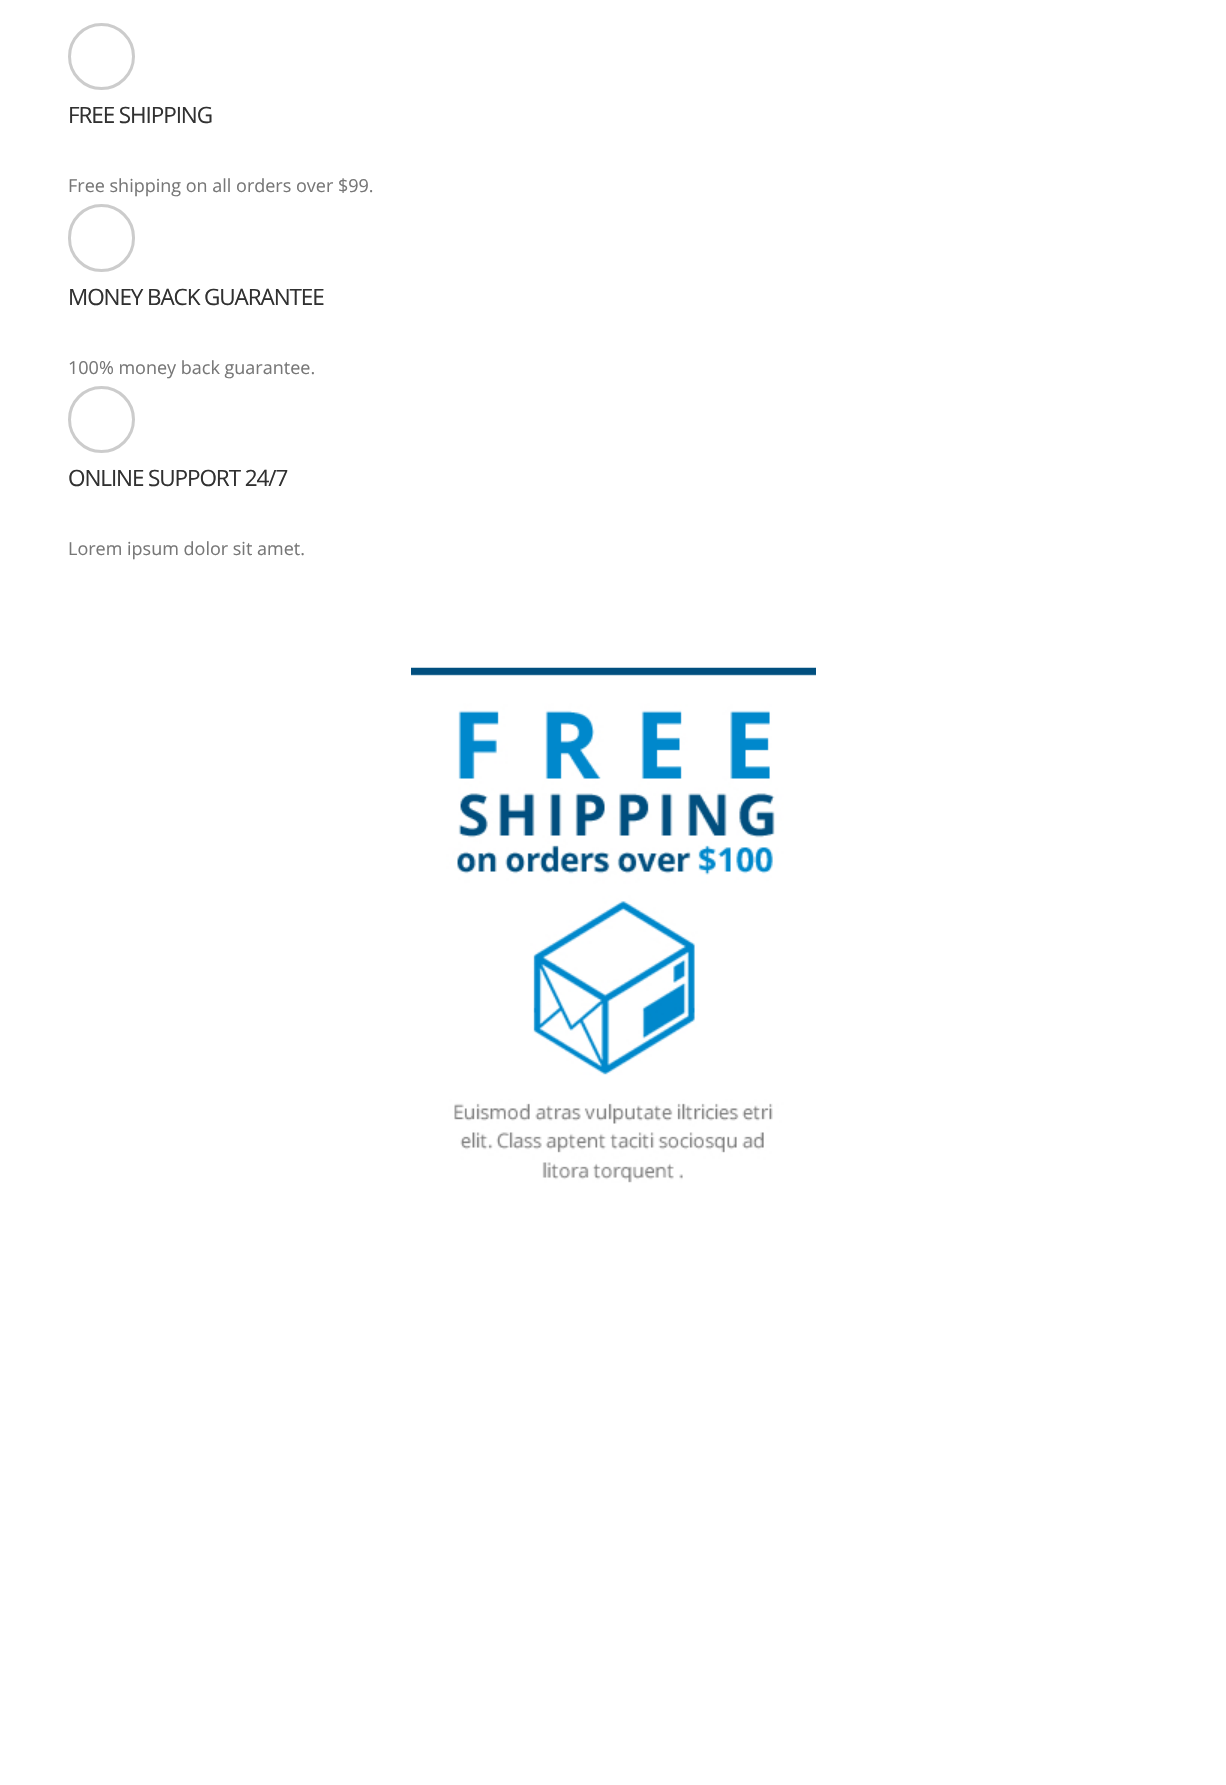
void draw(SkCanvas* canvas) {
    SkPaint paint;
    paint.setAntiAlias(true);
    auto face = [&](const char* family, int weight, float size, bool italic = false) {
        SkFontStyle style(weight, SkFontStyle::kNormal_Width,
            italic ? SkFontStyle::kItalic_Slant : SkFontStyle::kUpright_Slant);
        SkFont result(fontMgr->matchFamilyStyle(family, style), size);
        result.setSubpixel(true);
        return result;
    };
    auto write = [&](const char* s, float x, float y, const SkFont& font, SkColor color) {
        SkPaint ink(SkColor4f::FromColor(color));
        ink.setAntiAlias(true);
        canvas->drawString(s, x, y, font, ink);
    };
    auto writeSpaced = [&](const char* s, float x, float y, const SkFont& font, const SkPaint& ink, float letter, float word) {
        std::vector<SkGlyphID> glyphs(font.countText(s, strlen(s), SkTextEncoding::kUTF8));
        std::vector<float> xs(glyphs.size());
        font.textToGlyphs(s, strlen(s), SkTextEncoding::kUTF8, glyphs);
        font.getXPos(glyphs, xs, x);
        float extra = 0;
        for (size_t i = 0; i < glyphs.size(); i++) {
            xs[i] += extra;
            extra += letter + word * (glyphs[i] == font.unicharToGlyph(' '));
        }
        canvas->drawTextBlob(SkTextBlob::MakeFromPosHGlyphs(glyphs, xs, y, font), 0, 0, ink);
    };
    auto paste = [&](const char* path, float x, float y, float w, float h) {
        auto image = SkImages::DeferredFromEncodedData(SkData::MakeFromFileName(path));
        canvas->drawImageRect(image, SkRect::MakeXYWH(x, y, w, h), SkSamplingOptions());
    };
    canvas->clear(SK_ColorWHITE);
    paint.setStyle(SkPaint::kStroke_Style);
    paint.setStrokeWidth(3);
    paint.setColor(SkColorSetRGB(204, 204, 204));
    canvas->drawCircle(101.5f, 56.5f, 32, paint);
    auto kFont1 = face("Open Sans", 400, 22.5f);
    paint.setStyle(SkPaint::kFill_Style);
    paint.setColor(SkColorSetRGB(49, 49, 49));
    writeSpaced("FREE SHIPPING", 68, 123, kFont1, paint, -1.1f, 0);
    auto kFont2 = face("Open Sans", 400, 18);
    write("Free shipping on all orders over $99.", 68, 192, kFont2, SkColorSetRGB(119, 119, 119));
    paint.setStyle(SkPaint::kStroke_Style);
    paint.setColor(SkColorSetRGB(204, 204, 204));
    canvas->drawRoundRect(SkRect::MakeXYWH(69.5f, 205.5f, 64, 65), 32, 32, paint);
    paint.setStyle(SkPaint::kFill_Style);
    paint.setColor(SkColorSetRGB(49, 49, 49));
    writeSpaced("MONEY BACK GUARANTEE", 68, 305, kFont1, paint, -1.1f, 0);
    write("100% money back guarantee.", 68, 374, kFont2, SkColorSetRGB(119, 119, 119));
    paint.setStyle(SkPaint::kStroke_Style);
    paint.setColor(SkColorSetRGB(204, 204, 204));
    canvas->drawCircle(101.5f, 419.5f, 32, paint);
    paint.setStyle(SkPaint::kFill_Style);
    paint.setColor(SkColorSetRGB(49, 49, 49));
    writeSpaced("ONLINE SUPPORT 24/7", 68, 486, kFont1, paint, -1.1f, 0);
    write("Lorem ipsum dolor sit amet.", 68, 555, kFont2, SkColorSetRGB(119, 119, 119));
    paste("pic1.png", 411, 667, 405, 516);
}
